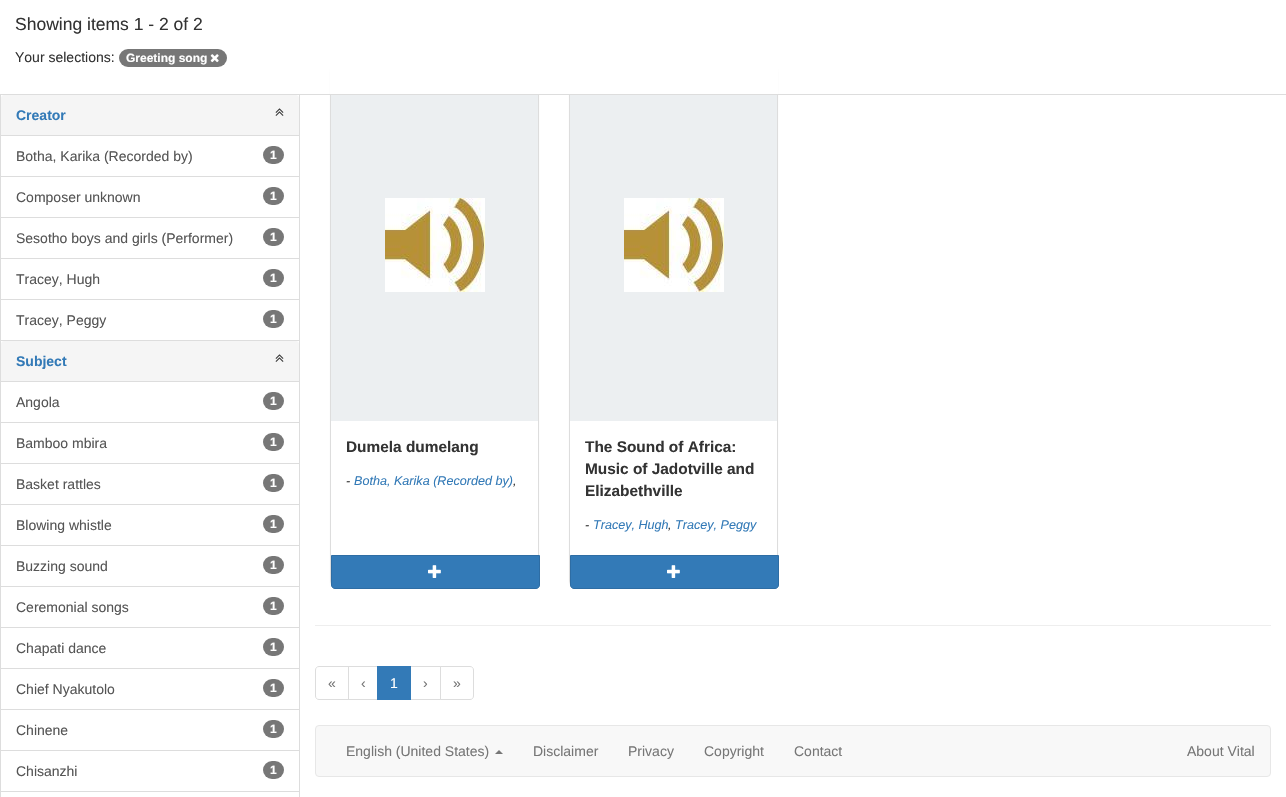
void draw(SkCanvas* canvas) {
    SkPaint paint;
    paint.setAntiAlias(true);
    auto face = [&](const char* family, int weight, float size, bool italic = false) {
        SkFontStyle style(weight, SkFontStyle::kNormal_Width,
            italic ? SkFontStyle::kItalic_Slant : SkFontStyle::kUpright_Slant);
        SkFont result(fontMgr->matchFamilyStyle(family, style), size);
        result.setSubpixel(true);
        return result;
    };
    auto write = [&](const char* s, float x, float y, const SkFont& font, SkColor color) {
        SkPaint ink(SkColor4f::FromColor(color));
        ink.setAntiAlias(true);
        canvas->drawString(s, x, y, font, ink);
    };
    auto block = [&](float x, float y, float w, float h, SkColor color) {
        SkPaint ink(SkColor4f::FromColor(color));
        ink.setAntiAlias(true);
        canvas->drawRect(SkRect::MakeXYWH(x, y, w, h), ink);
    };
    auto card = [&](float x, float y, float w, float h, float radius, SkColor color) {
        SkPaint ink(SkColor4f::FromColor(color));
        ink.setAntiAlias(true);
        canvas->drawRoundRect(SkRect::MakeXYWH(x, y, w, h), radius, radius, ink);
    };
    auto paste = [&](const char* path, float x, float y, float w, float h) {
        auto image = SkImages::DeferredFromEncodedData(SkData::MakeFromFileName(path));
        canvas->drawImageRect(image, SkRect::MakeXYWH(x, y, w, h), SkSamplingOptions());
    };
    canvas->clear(SK_ColorWHITE);
    paint.setColor(SkColorSetARGB(13, 0, 0, 0));
    paint.setMaskFilter(SkMaskFilter::MakeBlur(kNormal_SkBlurStyle, 0.5f));
    canvas->drawRoundRect(SkRect::MakeXYWH(330, 69, 209, 517), 4, 4, paint);
    paint.setMaskFilter(nullptr);
    paint.setColor(SK_ColorWHITE);
    canvas->drawRoundRect(SkRect::MakeXYWH(330.5f, 68.5f, 208, 516), 3.5f, 3.5f, paint);
    paint.setStyle(SkPaint::kStroke_Style);
    paint.setStrokeWidth(1);
    paint.setColor(SkColorSetRGB(221, 221, 221));
    canvas->drawRoundRect(SkRect::MakeXYWH(330.5f, 68.5f, 208, 516), 3.5f, 3.5f, paint);
    paint.setStyle(SkPaint::kFill_Style);
    paint.setColor(SkColorSetARGB(13, 0, 0, 0));
    paint.setMaskFilter(SkMaskFilter::MakeBlur(kNormal_SkBlurStyle, 0.5f));
    canvas->drawRoundRect(SkRect::MakeXYWH(569, 69, 209, 517), 4, 4, paint);
    paint.setMaskFilter(nullptr);
    paint.setColor(SK_ColorWHITE);
    canvas->drawRoundRect(SkRect::MakeXYWH(569.5f, 68.5f, 208, 516), 3.5f, 3.5f, paint);
    paint.setStyle(SkPaint::kStroke_Style);
    paint.setColor(SkColorSetRGB(221, 221, 221));
    canvas->drawRoundRect(SkRect::MakeXYWH(569.5f, 68.5f, 208, 516), 3.5f, 3.5f, paint);
    block(330, 68, 448, 26, SK_ColorWHITE);
    block(300, 94, 986, 1, SkColorSetRGB(221, 221, 221));
    auto kFont1 = face("Liberation Sans", 400, 17.5f);
    write("Showing items 1 - 2 of 2", 15, 30, kFont1, SkColorSetRGB(51, 51, 51));
    auto kFont2 = face("Liberation Sans", 400, 14);
    write("Your selections:", 15, 62, kFont2, SkColorSetRGB(51, 51, 51));
    card(119, 49, 108, 18, 9, SkColorSetRGB(119, 119, 119));
    auto kFont3 = face("Liberation Sans", 700, 12);
    write("Greeting song", 126, 62, kFont3, SK_ColorWHITE);
    paste("pic1.png", 210, 54, 9, 9);
    canvas->drawRect(SkRect::MakeXYWH(0.5f, 94.5f, 299, 246), paint);
    paint.setStyle(SkPaint::kFill_Style);
    paint.setColor(SkColorSetRGB(245, 245, 245));
    canvas->drawPath(SkPathBuilder().moveTo(4, 95).lineTo(296, 95).cubicTo(297.5f, 95, 299, 96.5f, 299, 98).lineTo(299, 136).lineTo(1, 136).lineTo(1, 98).cubicTo(1, 96.5f, 2.5f, 95, 4, 95).close().detach(), paint);
    block(1, 135, 298, 1, SkColorSetRGB(221, 221, 221));
    auto kFont4 = face("Liberation Sans", 700, 14);
    write("Creator", 16, 120, kFont4, SkColorSetRGB(51, 122, 183));
    paste("pic2.png", 275, 108, 9, 8);
    block(1, 176, 298, 1, SkColorSetRGB(221, 221, 221));
    write("Botha, Karika (Recorded by)", 16, 161, kFont2, SkColorSetRGB(85, 85, 85));
    card(263, 146, 21, 18, 9, SkColorSetRGB(119, 119, 119));
    write("1", 270, 159, kFont3, SK_ColorWHITE);
    block(1, 217, 298, 1, SkColorSetRGB(221, 221, 221));
    write("Composer unknown", 16, 202, kFont2, SkColorSetRGB(85, 85, 85));
    card(263, 187, 21, 18, 9, SkColorSetRGB(119, 119, 119));
    write("1", 270, 200, kFont3, SK_ColorWHITE);
    block(1, 258, 298, 1, SkColorSetRGB(221, 221, 221));
    write("Sesotho boys and girls (Performer)", 16, 243, kFont2, SkColorSetRGB(85, 85, 85));
    card(263, 228, 21, 18, 9, SkColorSetRGB(119, 119, 119));
    write("1", 270, 241, kFont3, SK_ColorWHITE);
    write("Tracey, Hugh", 16, 284, kFont2, SkColorSetRGB(85, 85, 85));
    card(263, 269, 21, 18, 9, SkColorSetRGB(119, 119, 119));
    write("1", 270, 282, kFont3, SK_ColorWHITE);
    block(1, 299, 298, 1, SkColorSetRGB(221, 221, 221));
    write("Tracey, Peggy", 16, 325, kFont2, SkColorSetRGB(85, 85, 85));
    card(263, 310, 21, 18, 9, SkColorSetRGB(119, 119, 119));
    write("1", 270, 323, kFont3, SK_ColorWHITE);
    paint.setStyle(SkPaint::kStroke_Style);
    paint.setColor(SkColorSetRGB(221, 221, 221));
    canvas->drawRect(SkRect::MakeXYWH(0.5f, 340.5f, 299, 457), paint);
    paint.setStyle(SkPaint::kFill_Style);
    paint.setColor(SkColorSetRGB(245, 245, 245));
    canvas->drawPath(SkPathBuilder().moveTo(4, 341).lineTo(296, 341).cubicTo(297.5f, 341, 299, 342.5f, 299, 344).lineTo(299, 382).lineTo(1, 382).lineTo(1, 344).cubicTo(1, 342.5f, 2.5f, 341, 4, 341).close().detach(), paint);
    block(1, 381, 298, 1, SkColorSetRGB(221, 221, 221));
    write("Subject", 16, 366, kFont4, SkColorSetRGB(51, 122, 183));
    paste("pic2.png", 275, 354, 9, 8);
    block(1, 422, 298, 1, SkColorSetRGB(221, 221, 221));
    write("Angola", 16, 407, kFont2, SkColorSetRGB(85, 85, 85));
    card(263, 392, 21, 18, 9, SkColorSetRGB(119, 119, 119));
    write("1", 270, 405, kFont3, SK_ColorWHITE);
    block(1, 463, 298, 1, SkColorSetRGB(221, 221, 221));
    write("Bamboo mbira", 16, 448, kFont2, SkColorSetRGB(85, 85, 85));
    card(263, 433, 21, 18, 9, SkColorSetRGB(119, 119, 119));
    write("1", 270, 446, kFont3, SK_ColorWHITE);
    block(1, 504, 298, 1, SkColorSetRGB(221, 221, 221));
    write("Basket rattles", 16, 489, kFont2, SkColorSetRGB(85, 85, 85));
    card(263, 474, 21, 18, 9, SkColorSetRGB(119, 119, 119));
    write("1", 270, 487, kFont3, SK_ColorWHITE);
    block(1, 545, 298, 1, SkColorSetRGB(221, 221, 221));
    write("Blowing whistle", 16, 530, kFont2, SkColorSetRGB(85, 85, 85));
    card(263, 515, 21, 18, 9, SkColorSetRGB(119, 119, 119));
    write("1", 270, 528, kFont3, SK_ColorWHITE);
    block(1, 586, 298, 1, SkColorSetRGB(221, 221, 221));
    write("Buzzing sound", 16, 571, kFont2, SkColorSetRGB(85, 85, 85));
    card(263, 556, 21, 18, 9, SkColorSetRGB(119, 119, 119));
    write("1", 270, 569, kFont3, SK_ColorWHITE);
    block(1, 627, 298, 1, SkColorSetRGB(221, 221, 221));
    write("Ceremonial songs", 16, 612, kFont2, SkColorSetRGB(85, 85, 85));
    card(263, 597, 21, 18, 9, SkColorSetRGB(119, 119, 119));
    write("1", 270, 610, kFont3, SK_ColorWHITE);
    block(1, 668, 298, 1, SkColorSetRGB(221, 221, 221));
    write("Chapati dance", 16, 653, kFont2, SkColorSetRGB(85, 85, 85));
    card(263, 638, 21, 18, 9, SkColorSetRGB(119, 119, 119));
    write("1", 270, 651, kFont3, SK_ColorWHITE);
    block(1, 709, 298, 1, SkColorSetRGB(221, 221, 221));
    write("Chief Nyakutolo", 16, 694, kFont2, SkColorSetRGB(85, 85, 85));
    card(263, 679, 21, 18, 9, SkColorSetRGB(119, 119, 119));
    write("1", 270, 692, kFont3, SK_ColorWHITE);
    block(1, 750, 298, 1, SkColorSetRGB(221, 221, 221));
    write("Chinene", 16, 735, kFont2, SkColorSetRGB(85, 85, 85));
    card(263, 720, 21, 18, 9, SkColorSetRGB(119, 119, 119));
    write("1", 270, 733, kFont3, SK_ColorWHITE);
    write("Chisanzhi", 16, 776, kFont2, SkColorSetRGB(85, 85, 85));
    card(263, 761, 21, 18, 9, SkColorSetRGB(119, 119, 119));
    write("1", 270, 774, kFont3, SK_ColorWHITE);
    block(1, 791, 298, 1, SkColorSetRGB(221, 221, 221));
    block(331, 95, 207, 326, SkColorSetRGB(236, 239, 241));
    paste("pic3.png", 385, 198, 100, 94);
    auto kFont5 = face("Liberation Sans", 700, 15.4f);
    write("Dumela dumelang", 346, 452, kFont5, SkColorSetRGB(51, 51, 51));
    auto kFont6 = face("Liberation Sans", 400, 12.6f, true);
    write("-", 346, 485, kFont6, SkColorSetRGB(51, 51, 51));
    write("Botha, Karika (Recorded by)", 354, 485, kFont6, SkColorSetRGB(51, 122, 183));
    write(",", 513, 485, kFont6, SkColorSetRGB(51, 51, 51));
    paint.setColor(SkColorSetRGB(51, 122, 183));
    canvas->drawPath(SkPathBuilder().moveTo(331.5f, 555.5f).lineTo(539.5f, 555.5f).lineTo(539.5f, 585).cubicTo(539.5f, 587, 538, 588.5f, 536, 588.5f).lineTo(335, 588.5f).cubicTo(333, 588.5f, 331.5f, 587, 331.5f, 585).close().detach(), paint);
    paint.setStyle(SkPaint::kStroke_Style);
    paint.setColor(SkColorSetRGB(46, 109, 164));
    canvas->drawPath(SkPathBuilder().moveTo(331.5f, 555.5f).lineTo(539.5f, 555.5f).lineTo(539.5f, 585).cubicTo(539.5f, 587, 538, 588.5f, 536, 588.5f).lineTo(335, 588.5f).cubicTo(333, 588.5f, 331.5f, 587, 331.5f, 585).close().detach(), paint);
    paste("pic4.png", 428, 565, 13, 13);
    block(570, 95, 207, 326, SkColorSetRGB(236, 239, 241));
    paste("pic3.png", 624, 198, 100, 94);
    write("The Sound of Africa:", 585, 452, kFont5, SkColorSetRGB(51, 51, 51));
    write("Music of Jadotville and", 585, 474, kFont5, SkColorSetRGB(51, 51, 51));
    write("Elizabethville", 585, 496, kFont5, SkColorSetRGB(51, 51, 51));
    write("-", 585, 529, kFont6, SkColorSetRGB(51, 51, 51));
    write("Tracey, Hugh", 593, 529, kFont6, SkColorSetRGB(51, 122, 183));
    write("Tracey, Peggy", 675, 529, kFont6, SkColorSetRGB(51, 122, 183));
    write(",", 668, 529, kFont6, SkColorSetRGB(51, 51, 51));
    paint.setStyle(SkPaint::kFill_Style);
    paint.setColor(SkColorSetRGB(51, 122, 183));
    canvas->drawPath(SkPathBuilder().moveTo(570.5f, 555.5f).lineTo(778.5f, 555.5f).lineTo(778.5f, 585).cubicTo(778.5f, 587, 777, 588.5f, 775, 588.5f).lineTo(574, 588.5f).cubicTo(572, 588.5f, 570.5f, 587, 570.5f, 585).close().detach(), paint);
    paint.setStyle(SkPaint::kStroke_Style);
    paint.setColor(SkColorSetRGB(46, 109, 164));
    canvas->drawPath(SkPathBuilder().moveTo(570.5f, 555.5f).lineTo(778.5f, 555.5f).lineTo(778.5f, 585).cubicTo(778.5f, 587, 777, 588.5f, 775, 588.5f).lineTo(574, 588.5f).cubicTo(572, 588.5f, 570.5f, 587, 570.5f, 585).close().detach(), paint);
    paste("pic4.png", 667, 565, 13, 13);
    block(315, 625, 956, 1, SkColorSetRGB(238, 238, 238));
    paint.setColor(SkColorSetRGB(221, 221, 221));
    canvas->drawPath(SkPathBuilder().moveTo(319, 666.5f).lineTo(348.5f, 666.5f).lineTo(348.5f, 699.5f).lineTo(319, 699.5f).cubicTo(317, 699.5f, 315.5f, 698, 315.5f, 696).lineTo(315.5f, 670).cubicTo(315.5f, 668, 317, 666.5f, 319, 666.5f).close().detach(), paint);
    write("«", 328, 688, kFont2, SkColorSetRGB(119, 119, 119));
    canvas->drawRect(SkRect::MakeXYWH(348.5f, 666.5f, 29, 33), paint);
    write("‹", 361, 688, kFont2, SkColorSetRGB(119, 119, 119));
    canvas->drawRect(SkRect::MakeXYWH(410.5f, 666.5f, 30, 33), paint);
    block(377, 666, 34, 34, SkColorSetRGB(51, 122, 183));
    write("1", 390, 688, kFont2, SK_ColorWHITE);
    write("›", 423, 688, kFont2, SkColorSetRGB(119, 119, 119));
    paint.setStyle(SkPaint::kFill_Style);
    paint.setColor(SK_ColorWHITE);
    canvas->drawPath(SkPathBuilder().moveTo(440.5f, 666.5f).lineTo(470, 666.5f).cubicTo(472, 666.5f, 473.5f, 668, 473.5f, 670).lineTo(473.5f, 696).cubicTo(473.5f, 698, 472, 699.5f, 470, 699.5f).lineTo(440.5f, 699.5f).close().detach(), paint);
    paint.setStyle(SkPaint::kStroke_Style);
    paint.setColor(SkColorSetRGB(221, 221, 221));
    canvas->drawPath(SkPathBuilder().moveTo(440.5f, 666.5f).lineTo(470, 666.5f).cubicTo(472, 666.5f, 473.5f, 668, 473.5f, 670).lineTo(473.5f, 696).cubicTo(473.5f, 698, 472, 699.5f, 470, 699.5f).lineTo(440.5f, 699.5f).close().detach(), paint);
    write("»", 453, 688, kFont2, SkColorSetRGB(119, 119, 119));
    paint.setStyle(SkPaint::kFill_Style);
    paint.setColor(SkColorSetRGB(248, 248, 248));
    canvas->drawRoundRect(SkRect::MakeXYWH(315.5f, 725.5f, 955, 51), 3.5f, 3.5f, paint);
    paint.setStyle(SkPaint::kStroke_Style);
    paint.setColor(SkColorSetRGB(231, 231, 231));
    canvas->drawRoundRect(SkRect::MakeXYWH(315.5f, 725.5f, 955, 51), 3.5f, 3.5f, paint);
    write("English (United States)", 346, 756, kFont2, SkColorSetRGB(119, 119, 119));
    paint.setStyle(SkPaint::kFill_Style);
    paint.setColor(SkColorSetRGB(119, 119, 119));
    canvas->drawPath(SkPathBuilder().moveTo(503, 754).lineTo(495, 754).lineTo(499, 750).close().detach(), paint);
    write("Disclaimer", 533, 756, kFont2, SkColorSetRGB(119, 119, 119));
    write("Privacy", 628, 756, kFont2, SkColorSetRGB(119, 119, 119));
    write("Copyright", 704, 756, kFont2, SkColorSetRGB(119, 119, 119));
    write("Contact", 794, 756, kFont2, SkColorSetRGB(119, 119, 119));
    write("About Vital", 1187, 756, kFont2, SkColorSetRGB(119, 119, 119));
}
